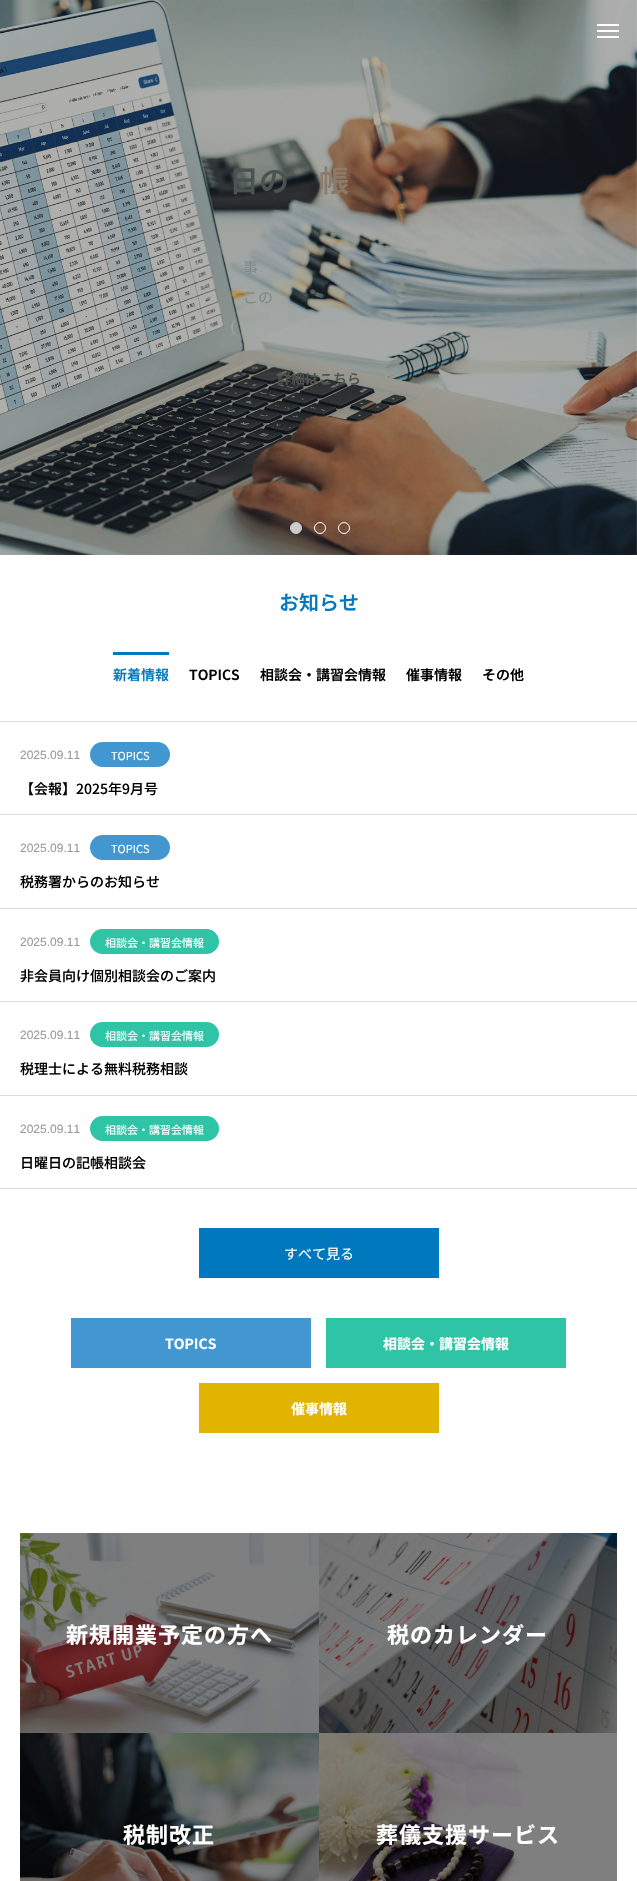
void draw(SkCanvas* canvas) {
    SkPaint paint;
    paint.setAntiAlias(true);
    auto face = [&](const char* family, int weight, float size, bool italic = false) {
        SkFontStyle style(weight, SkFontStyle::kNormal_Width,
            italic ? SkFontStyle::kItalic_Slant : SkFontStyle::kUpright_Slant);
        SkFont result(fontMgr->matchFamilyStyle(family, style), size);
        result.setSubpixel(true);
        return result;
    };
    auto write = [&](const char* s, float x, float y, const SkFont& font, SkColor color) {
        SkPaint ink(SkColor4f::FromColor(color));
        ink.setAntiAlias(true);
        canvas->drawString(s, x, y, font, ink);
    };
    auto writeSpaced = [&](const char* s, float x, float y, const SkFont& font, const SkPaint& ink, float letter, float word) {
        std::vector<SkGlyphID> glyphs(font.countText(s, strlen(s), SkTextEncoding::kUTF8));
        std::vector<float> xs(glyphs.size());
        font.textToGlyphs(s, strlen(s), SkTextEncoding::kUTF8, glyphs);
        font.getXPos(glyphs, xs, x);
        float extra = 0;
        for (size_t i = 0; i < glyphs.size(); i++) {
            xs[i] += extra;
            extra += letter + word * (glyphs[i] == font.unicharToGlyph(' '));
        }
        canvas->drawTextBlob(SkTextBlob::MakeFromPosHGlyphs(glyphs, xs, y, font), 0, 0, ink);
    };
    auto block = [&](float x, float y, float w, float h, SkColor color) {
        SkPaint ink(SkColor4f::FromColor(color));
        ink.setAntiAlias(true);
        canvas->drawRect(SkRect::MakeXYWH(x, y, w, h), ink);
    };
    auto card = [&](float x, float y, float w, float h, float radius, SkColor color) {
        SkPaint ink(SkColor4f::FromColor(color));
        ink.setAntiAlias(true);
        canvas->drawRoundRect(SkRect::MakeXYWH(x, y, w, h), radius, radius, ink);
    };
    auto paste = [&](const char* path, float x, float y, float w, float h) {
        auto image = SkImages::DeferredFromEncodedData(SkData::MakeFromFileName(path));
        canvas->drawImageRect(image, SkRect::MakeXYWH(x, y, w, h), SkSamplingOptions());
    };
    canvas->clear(SK_ColorWHITE);
    paste("pic1.png", 0, 0, 637, 555);
    block(597, 24, 22, 2, SK_ColorWHITE);
    block(597, 30, 22, 2, SK_ColorWHITE);
    block(597, 36, 22, 2, SK_ColorWHITE);
    auto kFont1 = face("Noto Sans JP", 600, 30);
    write("日", 229, 192, kFont1, SkColorSetRGB(75, 83, 82));
    write("の", 259, 192, kFont1, SkColorSetRGB(75, 83, 82));
    write("帳", 319, 192, kFont1, SkColorSetRGB(140, 123, 107));
    auto kFont2 = face("Noto Sans JP", 400, 15);
    write("事", 243, 273, kFont2, SkColorSetRGB(129, 138, 138));
    write("この", 243, 303, kFont2, SkColorSetRGB(130, 135, 131));
    write("（", 221, 333, kFont2, SkColorSetRGB(161, 166, 164));
    auto kFont3 = face("Noto Sans JP", 600, 14);
    write("詳細はこちら", 277, 384, kFont3, SkColorSetRGB(81, 83, 81));
    paint.setColor(SkColorSetRGB(204, 204, 204));
    canvas->drawCircle(296, 528, 5.5f, paint);
    paint.setStyle(SkPaint::kStroke_Style);
    paint.setStrokeWidth(1);
    canvas->drawCircle(296, 528, 5.5f, paint);
    paint.setColor(SK_ColorWHITE);
    canvas->drawCircle(320, 528, 5.5f, paint);
    canvas->drawCircle(344, 528, 5.5f, paint);
    auto kFont4 = face("Noto Sans JP", 600, 20);
    write("お知らせ", 279, 610, kFont4, SkColorSetRGB(0, 120, 189));
    block(113, 652, 56, 3, SkColorSetRGB(0, 120, 189));
    write("新着情報", 113, 680, kFont3, SkColorSetRGB(0, 120, 189));
    write("TOPICS", 189, 680, kFont3, SK_ColorBLACK);
    write("相談会・講習会情報", 260, 680, kFont3, SK_ColorBLACK);
    write("催事情報", 406, 680, kFont3, SK_ColorBLACK);
    write("その他", 482, 680, kFont3, SK_ColorBLACK);
    block(0, 721, 637, 1, SkColorSetRGB(221, 221, 221));
    block(0, 814, 637, 1, SkColorSetRGB(221, 221, 221));
    auto kFont5 = face("Liberation Sans", 400, 12);
    write("2025.09.11", 20, 759, kFont5, SkColorSetRGB(153, 153, 153));
    card(90, 742, 80, 25, 12.5f, SkColorSetRGB(66, 151, 208));
    auto kFont6 = face("Noto Sans JP", 400, 11);
    write("TOPICS", 111, 760, kFont6, SK_ColorWHITE);
    auto kFont7 = face("Noto Sans JP", 500, 14);
    write("【会報】2025年9月号", 20, 794, kFont7, SK_ColorBLACK);
    block(0, 908, 637, 1, SkColorSetRGB(221, 221, 221));
    write("2025.09.11", 20, 852, kFont5, SkColorSetRGB(153, 153, 153));
    card(90, 835, 80, 25, 12.5f, SkColorSetRGB(66, 151, 208));
    write("TOPICS", 111, 853, kFont6, SK_ColorWHITE);
    write("税務署からのお知らせ", 20, 887, kFont7, SK_ColorBLACK);
    block(0, 1001, 637, 1, SkColorSetRGB(221, 221, 221));
    write("2025.09.11", 20, 946, kFont5, SkColorSetRGB(153, 153, 153));
    card(90, 929, 129, 25, 12.5f, SkColorSetRGB(48, 196, 167));
    write("相談会・講習会情報", 105, 947, kFont6, SK_ColorWHITE);
    write("非会員向け個別相談会のご案内", 20, 981, kFont7, SK_ColorBLACK);
    block(0, 1095, 637, 1, SkColorSetRGB(221, 221, 221));
    write("2025.09.11", 20, 1039, kFont5, SkColorSetRGB(153, 153, 153));
    card(90, 1022, 129, 25, 12.5f, SkColorSetRGB(48, 196, 167));
    write("相談会・講習会情報", 105, 1040, kFont6, SK_ColorWHITE);
    write("税理士による無料税務相談", 20, 1074, kFont7, SK_ColorBLACK);
    block(0, 1188, 637, 1, SkColorSetRGB(221, 221, 221));
    write("2025.09.11", 20, 1133, kFont5, SkColorSetRGB(153, 153, 153));
    card(90, 1116, 129, 25, 12.5f, SkColorSetRGB(48, 196, 167));
    write("相談会・講習会情報", 105, 1134, kFont6, SK_ColorWHITE);
    write("日曜日の記帳相談会", 20, 1168, kFont7, SK_ColorBLACK);
    block(199, 1228, 240, 50, SkColorSetRGB(0, 120, 189));
    auto kFont8 = face("Noto Sans JP", 400, 14);
    write("すべて見る", 284, 1259, kFont8, SK_ColorWHITE);
    block(71, 1318, 240, 50, SkColorSetRGB(66, 151, 208));
    auto kFont9 = face("Noto Sans JP", 700, 14);
    write("TOPICS", 165, 1349, kFont9, SK_ColorWHITE);
    block(326, 1318, 240, 50, SkColorSetRGB(48, 196, 167));
    write("相談会・講習会情報", 383, 1349, kFont9, SK_ColorWHITE);
    block(199, 1383, 240, 50, SkColorSetRGB(224, 180, 0));
    write("催事情報", 291, 1414, kFont9, SK_ColorWHITE);
    paste("pic2.png", 20, 1533, 299, 200);
    auto kFont10 = face("Noto Sans JP", 700, 22);
    paint.setStyle(SkPaint::kFill_Style);
    writeSpaced("新規開業予定の方へ", 66, 1643, kFont10, paint, 1, 0);
    paste("pic3.png", 319, 1533, 298, 200);
    writeSpaced("税のカレンダー", 387, 1643, kFont10, paint, 1, 0);
    paste("pic4.png", 20, 1733, 299, 148);
    writeSpaced("税制改正", 123, 1843, kFont10, paint, 1, 0);
    paste("pic5.png", 319, 1733, 298, 148);
    writeSpaced("葬儀支援サービス", 376, 1843, kFont10, paint, 1, 0);
}
